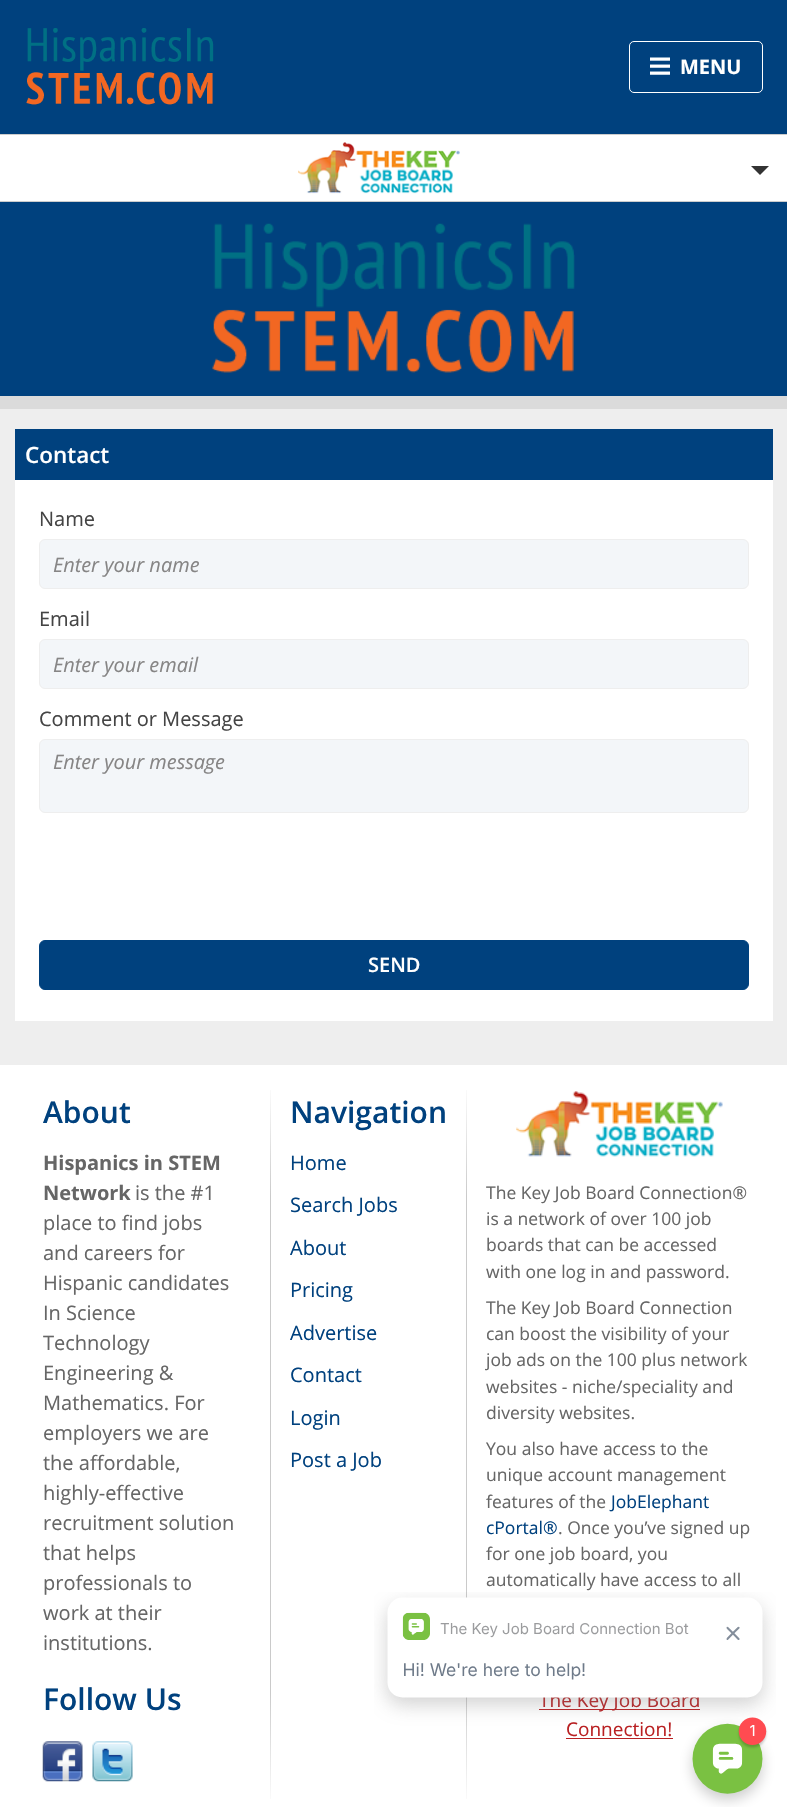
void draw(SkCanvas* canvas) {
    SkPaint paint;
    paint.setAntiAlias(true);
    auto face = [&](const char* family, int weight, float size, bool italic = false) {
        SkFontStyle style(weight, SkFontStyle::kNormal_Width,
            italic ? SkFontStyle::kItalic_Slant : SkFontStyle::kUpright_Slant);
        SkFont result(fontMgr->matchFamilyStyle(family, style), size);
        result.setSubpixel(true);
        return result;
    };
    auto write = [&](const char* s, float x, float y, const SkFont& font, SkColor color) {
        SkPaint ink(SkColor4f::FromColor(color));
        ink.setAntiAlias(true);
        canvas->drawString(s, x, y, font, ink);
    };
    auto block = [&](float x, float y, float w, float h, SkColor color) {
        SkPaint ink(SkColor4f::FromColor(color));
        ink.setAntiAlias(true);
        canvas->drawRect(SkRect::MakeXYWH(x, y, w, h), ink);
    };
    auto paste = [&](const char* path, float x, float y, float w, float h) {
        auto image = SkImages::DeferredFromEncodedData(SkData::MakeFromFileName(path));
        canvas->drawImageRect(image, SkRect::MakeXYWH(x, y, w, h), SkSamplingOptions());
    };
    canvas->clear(SkColorSetRGB(0, 65, 126));
    block(0, 396, 787, 13, SkColorSetRGB(219, 219, 219));
    paste("pic1.png", 26, 28, 188, 77);
    paint.setStyle(SkPaint::kStroke_Style);
    paint.setStrokeWidth(1);
    paint.setColor(SK_ColorWHITE);
    canvas->drawRoundRect(SkRect::MakeXYWH(629.5f, 41.5f, 133, 51), 4.5f, 4.5f, paint);
    paste("pic2.png", 650, 57, 20, 18);
    auto kFont1 = face("Open Sans", 700, 20);
    write("MENU", 680, 74, kFont1, SK_ColorWHITE);
    block(0, 135, 787, 66, SK_ColorWHITE);
    block(0, 134, 787, 1, SkColorSetRGB(204, 204, 204));
    block(0, 201, 787, 1, SkColorSetRGB(204, 204, 204));
    paste("pic3.png", 298, 142, 162, 52);
    paint.setStyle(SkPaint::kFill_Style);
    paint.setColor(SkColorSetRGB(51, 51, 51));
    canvas->drawPath(SkPathBuilder().moveTo(751, 166).lineTo(769, 166).lineTo(760, 175).close().detach(), paint);
    paste("pic4.png", 212, 223, 363, 150);
    block(0, 409, 787, 656, SkColorSetRGB(238, 238, 238));
    block(15, 480, 758, 541, SK_ColorWHITE);
    block(15, 429, 758, 51, SkColorSetRGB(0, 65, 126));
    auto kFont2 = face("Open Sans", 600, 22.5f);
    write("Contact", 25, 463, kFont2, SK_ColorWHITE);
    auto kFont3 = face("Open Sans", 400, 20);
    write("Name", 39, 526, kFont3, SkColorSetRGB(68, 68, 68));
    paint.setColor(SkColorSetRGB(243, 246, 249));
    canvas->drawRoundRect(SkRect::MakeXYWH(39.5f, 539.5f, 709, 49), 5.5f, 5.5f, paint);
    paint.setStyle(SkPaint::kStroke_Style);
    paint.setColor(SkColorSetRGB(238, 238, 238));
    canvas->drawRoundRect(SkRect::MakeXYWH(39.5f, 539.5f, 709, 49), 5.5f, 5.5f, paint);
    auto kFont4 = face("Open Sans", 400, 20, true);
    write("Enter your name", 53, 572, kFont4, SkColorSetRGB(134, 133, 133));
    write("Email", 39, 626, kFont3, SkColorSetRGB(68, 68, 68));
    paint.setStyle(SkPaint::kFill_Style);
    paint.setColor(SkColorSetRGB(243, 246, 249));
    canvas->drawRoundRect(SkRect::MakeXYWH(39.5f, 639.5f, 709, 49), 5.5f, 5.5f, paint);
    paint.setStyle(SkPaint::kStroke_Style);
    paint.setColor(SkColorSetRGB(238, 238, 238));
    canvas->drawRoundRect(SkRect::MakeXYWH(39.5f, 639.5f, 709, 49), 5.5f, 5.5f, paint);
    write("Enter your email", 53, 672, kFont4, SkColorSetRGB(134, 133, 133));
    write("Comment or Message", 39, 726, kFont3, SkColorSetRGB(68, 68, 68));
    paint.setStyle(SkPaint::kFill_Style);
    paint.setColor(SkColorSetRGB(243, 246, 249));
    canvas->drawRoundRect(SkRect::MakeXYWH(39.5f, 739.5f, 709, 73), 5.5f, 5.5f, paint);
    paint.setStyle(SkPaint::kStroke_Style);
    paint.setColor(SkColorSetRGB(238, 238, 238));
    canvas->drawRoundRect(SkRect::MakeXYWH(39.5f, 739.5f, 709, 73), 5.5f, 5.5f, paint);
    write("Enter your message", 53, 769, kFont4, SkColorSetRGB(134, 133, 133));
    paint.setStyle(SkPaint::kFill_Style);
    paint.setColor(SkColorSetRGB(0, 65, 126));
    canvas->drawRoundRect(SkRect::MakeXYWH(39.5f, 940.5f, 709, 49), 5.5f, 5.5f, paint);
    paint.setStyle(SkPaint::kStroke_Style);
    canvas->drawRoundRect(SkRect::MakeXYWH(39.5f, 940.5f, 709, 49), 5.5f, 5.5f, paint);
    auto kFont5 = face("Open Sans", 600, 20);
    write("SEND", 368, 972, kFont5, SK_ColorWHITE);
    block(0, 1065, 787, 753, SK_ColorWHITE);
    auto kFont6 = face("Open Sans", 600, 30);
    write("About", 43, 1123, kFont6, SkColorSetRGB(0, 65, 126));
    write("Hispanics in STEM", 43, 1170, kFont1, SkColorSetRGB(102, 102, 102));
    write("Network", 43, 1200, kFont1, SkColorSetRGB(102, 102, 102));
    write("is the #1", 135, 1200, kFont3, SkColorSetRGB(102, 102, 102));
    write("place to find jobs", 43, 1230, kFont3, SkColorSetRGB(102, 102, 102));
    write("and careers for", 43, 1260, kFont3, SkColorSetRGB(102, 102, 102));
    write("Hispanic candidates", 43, 1290, kFont3, SkColorSetRGB(102, 102, 102));
    write("In Science", 43, 1320, kFont3, SkColorSetRGB(102, 102, 102));
    write("Technology", 43, 1350, kFont3, SkColorSetRGB(102, 102, 102));
    write("Engineering &", 43, 1380, kFont3, SkColorSetRGB(102, 102, 102));
    write("Mathematics. For", 43, 1410, kFont3, SkColorSetRGB(102, 102, 102));
    write("employers we are", 43, 1440, kFont3, SkColorSetRGB(102, 102, 102));
    write("the affordable,", 43, 1470, kFont3, SkColorSetRGB(102, 102, 102));
    write("highly-effective", 43, 1500, kFont3, SkColorSetRGB(102, 102, 102));
    write("recruitment solution", 43, 1530, kFont3, SkColorSetRGB(102, 102, 102));
    write("that helps", 43, 1560, kFont3, SkColorSetRGB(102, 102, 102));
    write("professionals to", 43, 1590, kFont3, SkColorSetRGB(102, 102, 102));
    write("work at their", 43, 1620, kFont3, SkColorSetRGB(102, 102, 102));
    write("institutions.", 43, 1650, kFont3, SkColorSetRGB(102, 102, 102));
    write("Follow Us", 43, 1710, kFont6, SkColorSetRGB(0, 65, 126));
    paste("pic5.png", 42, 1741, 41, 41);
    paste("pic6.png", 92, 1741, 41, 41);
    paint.setStyle(SkPaint::kFill_Style);
    {
        const SkColor colors[] = {SkColorSetRGB(250, 250, 250), SkColorSetRGB(202, 202, 202), SkColorSetRGB(202, 202, 202), SkColorSetRGB(250, 250, 250)};
        const float stops[] = {0, 0.15f, 0.85f, 1};
        const SkPoint ends[] = {{271, 1090}, {271, 1799}};
        paint.setShader(SkGradientShader::MakeLinear(ends, colors, stops, 4, SkTileMode::kClamp));
        paint.setAlpha(255);
    }
    canvas->drawRect(SkRect::MakeXYWH(270, 1090, 1, 709), paint);
    write("Navigation", 290, 1123, kFont6, SkColorSetRGB(0, 65, 126));
    write("Home", 290, 1170, kFont3, SkColorSetRGB(0, 65, 126));
    write("Search Jobs", 290, 1212, kFont3, SkColorSetRGB(0, 65, 126));
    write("About", 290, 1255, kFont3, SkColorSetRGB(0, 65, 126));
    write("Pricing", 290, 1297, kFont3, SkColorSetRGB(0, 65, 126));
    write("Advertise", 290, 1340, kFont3, SkColorSetRGB(0, 65, 126));
    write("Contact", 290, 1382, kFont3, SkColorSetRGB(0, 65, 126));
    write("Login", 290, 1425, kFont3, SkColorSetRGB(0, 65, 126));
    write("Post a Job", 290, 1467, kFont3, SkColorSetRGB(0, 65, 126));
    {
        const SkColor colors[] = {SkColorSetRGB(250, 250, 250), SkColorSetRGB(202, 202, 202), SkColorSetRGB(202, 202, 202), SkColorSetRGB(250, 250, 250)};
        const float stops[] = {0, 0.15f, 0.85f, 1};
        const SkPoint ends[] = {{467, 1090}, {467, 1799}};
        paint.setShader(SkGradientShader::MakeLinear(ends, colors, stops, 4, SkTileMode::kClamp));
        paint.setAlpha(255);
    }
    canvas->drawRect(SkRect::MakeXYWH(466, 1090, 1, 709), paint);
    paste("pic7.png", 516, 1091, 207, 66);
    auto kFont7 = face("Open Sans", 400, 17.5f);
    write("The Key Job Board Connection®", 486, 1199, kFont7, SkColorSetRGB(102, 102, 102));
    write("is a network of over 100 job", 486, 1225, kFont7, SkColorSetRGB(102, 102, 102));
    write("boards that can be accessed", 486, 1251, kFont7, SkColorSetRGB(102, 102, 102));
    write("with one log in and password.", 486, 1278, kFont7, SkColorSetRGB(102, 102, 102));
    write("The Key Job Board Connection", 486, 1314, kFont7, SkColorSetRGB(102, 102, 102));
    write("can boost the visibility of your", 486, 1340, kFont7, SkColorSetRGB(102, 102, 102));
    write("job ads on the 100 plus network", 486, 1366, kFont7, SkColorSetRGB(102, 102, 102));
    write("websites - niche/speciality and", 486, 1393, kFont7, SkColorSetRGB(102, 102, 102));
    write("diversity websites.", 486, 1419, kFont7, SkColorSetRGB(102, 102, 102));
    write("You also have access to the", 486, 1455, kFont7, SkColorSetRGB(102, 102, 102));
    write("unique account management", 486, 1481, kFont7, SkColorSetRGB(102, 102, 102));
    write("features of the", 486, 1508, kFont7, SkColorSetRGB(102, 102, 102));
    write("JobElephant", 611, 1508, kFont7, SkColorSetRGB(0, 65, 126));
    write("cPortal®", 486, 1534, kFont7, SkColorSetRGB(0, 65, 126));
    write(". Once you’ve signed up", 558, 1534, kFont7, SkColorSetRGB(102, 102, 102));
    write("for one job board, you", 486, 1560, kFont7, SkColorSetRGB(102, 102, 102));
    write("automatically have access to all", 486, 1586, kFont7, SkColorSetRGB(102, 102, 102));
    block(539, 1709, 161, 1, SkColorSetRGB(185, 32, 34));
    auto kFont8 = face("Open Sans", 400, 19);
    write("The Key Job Board", 539, 1707, kFont8, SkColorSetRGB(185, 32, 34));
    write("Connection!", 566, 1736, kFont8, SkColorSetRGB(185, 32, 34));
    block(566, 1738, 107, 1, SkColorSetRGB(185, 32, 34));
    paste("pic8.png", 374, 1592, 402, 215);
}
